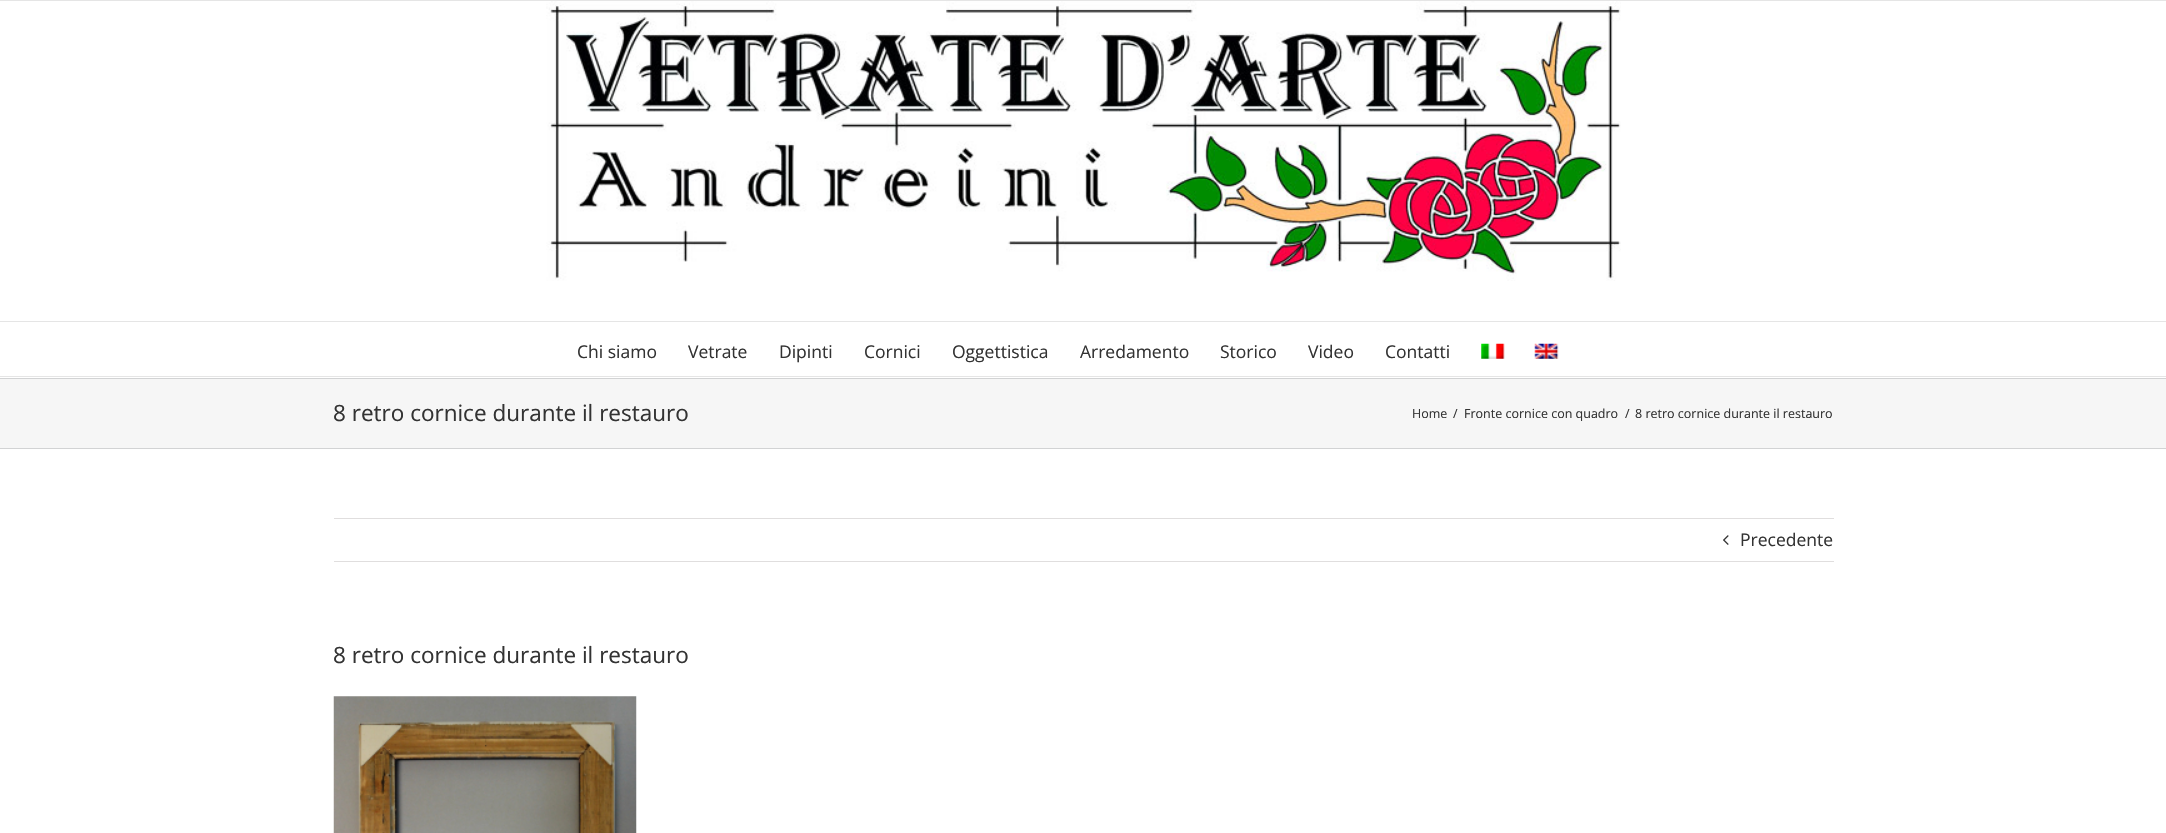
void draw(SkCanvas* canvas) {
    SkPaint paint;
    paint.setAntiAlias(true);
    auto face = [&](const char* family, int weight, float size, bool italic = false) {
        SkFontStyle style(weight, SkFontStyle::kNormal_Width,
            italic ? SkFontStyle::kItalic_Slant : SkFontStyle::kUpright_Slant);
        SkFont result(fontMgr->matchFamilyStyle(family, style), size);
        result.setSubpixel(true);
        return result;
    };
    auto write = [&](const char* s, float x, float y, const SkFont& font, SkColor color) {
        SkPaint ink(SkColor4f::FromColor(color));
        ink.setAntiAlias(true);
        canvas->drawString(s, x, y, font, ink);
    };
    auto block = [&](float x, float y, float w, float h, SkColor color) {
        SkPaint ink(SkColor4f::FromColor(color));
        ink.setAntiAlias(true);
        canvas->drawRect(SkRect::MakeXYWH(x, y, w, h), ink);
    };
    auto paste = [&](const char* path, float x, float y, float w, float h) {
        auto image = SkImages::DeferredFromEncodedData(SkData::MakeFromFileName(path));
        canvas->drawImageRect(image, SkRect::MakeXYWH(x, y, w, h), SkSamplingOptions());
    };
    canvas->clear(SK_ColorWHITE);
    block(0, 0, 2166, 1, SkColorSetRGB(229, 229, 229));
    block(0, 321, 2166, 1, SkColorSetRGB(229, 229, 229));
    paste("pic1.png", 546, 1, 1075, 280);
    block(0, 376, 2166, 1, SkColorSetRGB(229, 229, 229));
    auto kFont1 = face("Open Sans", 400, 17.5f);
    write("Chi siamo", 577, 358, kFont1, SkColorSetRGB(51, 51, 51));
    write("Vetrate", 688, 358, kFont1, SkColorSetRGB(51, 51, 51));
    write("Dipinti", 779, 358, kFont1, SkColorSetRGB(51, 51, 51));
    write("Cornici", 864, 358, kFont1, SkColorSetRGB(51, 51, 51));
    write("Oggettistica", 952, 358, kFont1, SkColorSetRGB(51, 51, 51));
    write("Arredamento", 1080, 358, kFont1, SkColorSetRGB(51, 51, 51));
    write("Storico", 1220, 358, kFont1, SkColorSetRGB(51, 51, 51));
    write("Video", 1308, 358, kFont1, SkColorSetRGB(51, 51, 51));
    write("Contatti", 1385, 358, kFont1, SkColorSetRGB(51, 51, 51));
    paste("pic2.png", 1481, 343, 24, 16);
    paste("pic3.png", 1534, 343, 25, 16);
    block(0, 379, 2166, 69, SkColorSetRGB(246, 246, 246));
    block(0, 378, 2166, 1, SkColorSetRGB(210, 211, 212));
    block(0, 448, 2166, 1, SkColorSetRGB(210, 211, 212));
    auto kFont2 = face("Open Sans", 400, 22.5f);
    write("8 retro cornice durante il restauro", 333, 421, kFont2, SkColorSetRGB(51, 51, 51));
    auto kFont3 = face("Open Sans", 400, 12.5f);
    write("Home", 1412, 418, kFont3, SkColorSetRGB(51, 51, 51));
    write("/", 1453, 418, kFont3, SkColorSetRGB(51, 51, 51));
    write("Fronte cornice con quadro", 1464, 418, kFont3, SkColorSetRGB(51, 51, 51));
    write("/", 1625, 418, kFont3, SkColorSetRGB(51, 51, 51));
    write("8 retro cornice durante il restauro", 1635, 418, kFont3, SkColorSetRGB(51, 51, 51));
    block(334, 518, 1500, 1, SkColorSetRGB(224, 222, 222));
    block(334, 561, 1500, 1, SkColorSetRGB(224, 222, 222));
    paste("pic4.png", 1723, 535, 6, 10);
    write("Precedente", 1740, 546, kFont1, SkColorSetRGB(51, 51, 51));
    write("8 retro cornice durante il restauro", 333, 663, kFont2, SkColorSetRGB(51, 51, 51));
    paste("pic5.png", 333, 696, 304, 137);
}
